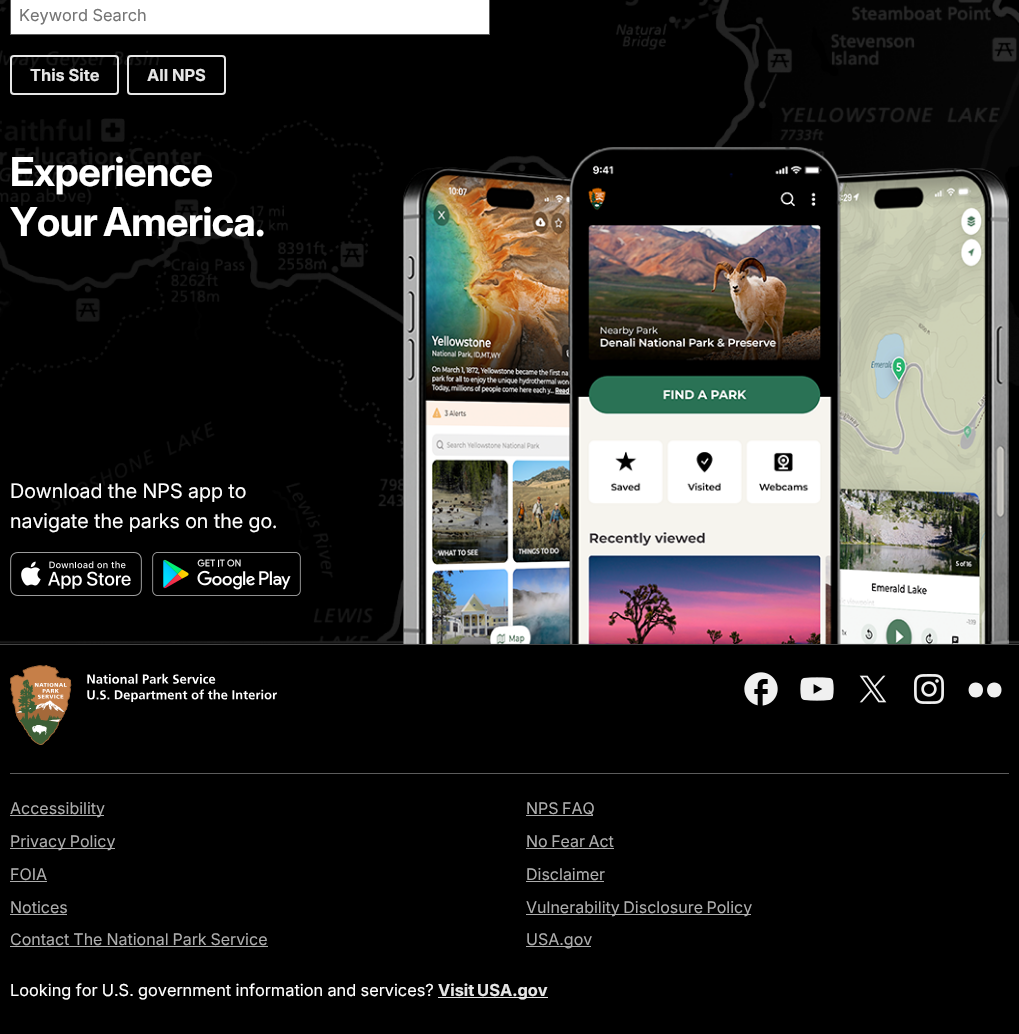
void draw(SkCanvas* canvas) {
    SkPaint paint;
    paint.setAntiAlias(true);
    auto face = [&](const char* family, int weight, float size, bool italic = false) {
        SkFontStyle style(weight, SkFontStyle::kNormal_Width,
            italic ? SkFontStyle::kItalic_Slant : SkFontStyle::kUpright_Slant);
        SkFont result(fontMgr->matchFamilyStyle(family, style), size);
        result.setSubpixel(true);
        return result;
    };
    auto write = [&](const char* s, float x, float y, const SkFont& font, SkColor color) {
        SkPaint ink(SkColor4f::FromColor(color));
        ink.setAntiAlias(true);
        canvas->drawString(s, x, y, font, ink);
    };
    auto writeSpaced = [&](const char* s, float x, float y, const SkFont& font, const SkPaint& ink, float letter, float word) {
        std::vector<SkGlyphID> glyphs(font.countText(s, strlen(s), SkTextEncoding::kUTF8));
        std::vector<float> xs(glyphs.size());
        font.textToGlyphs(s, strlen(s), SkTextEncoding::kUTF8, glyphs);
        font.getXPos(glyphs, xs, x);
        float extra = 0;
        for (size_t i = 0; i < glyphs.size(); i++) {
            xs[i] += extra;
            extra += letter + word * (glyphs[i] == font.unicharToGlyph(' '));
        }
        canvas->drawTextBlob(SkTextBlob::MakeFromPosHGlyphs(glyphs, xs, y, font), 0, 0, ink);
    };
    auto block = [&](float x, float y, float w, float h, SkColor color) {
        SkPaint ink(SkColor4f::FromColor(color));
        ink.setAntiAlias(true);
        canvas->drawRect(SkRect::MakeXYWH(x, y, w, h), ink);
    };
    auto paste = [&](const char* path, float x, float y, float w, float h) {
        auto image = SkImages::DeferredFromEncodedData(SkData::MakeFromFileName(path));
        canvas->drawImageRect(image, SkRect::MakeXYWH(x, y, w, h), SkSamplingOptions());
    };
    canvas->clear(SK_ColorBLACK);
    paste("pic1.png", 0, 0, 1019, 644);
    block(0, 644, 1019, 1, SkColorSetRGB(69, 69, 69));
    paint.setColor(SK_ColorWHITE);
    canvas->drawRect(SkRect::MakeXYWH(10.5f, -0.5f, 479, 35), paint);
    paint.setStyle(SkPaint::kStroke_Style);
    paint.setStrokeWidth(1);
    paint.setColor(SkColorSetRGB(92, 92, 92));
    canvas->drawRect(SkRect::MakeXYWH(10.5f, -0.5f, 479, 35), paint);
    auto kFont1 = face("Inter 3", 400, 16.5f);
    write("Keyword Search", 19, 21, kFont1, SkColorSetRGB(117, 117, 117));
    paint.setStrokeWidth(2);
    paint.setColor(SkColorSetRGB(230, 230, 230));
    canvas->drawRoundRect(SkRect::MakeXYWH(11, 56, 107, 38), 3, 3, paint);
    auto kFont2 = face("Inter", 700, 16.5f);
    write("This Site", 30, 81, kFont2, SkColorSetRGB(230, 230, 230));
    canvas->drawRoundRect(SkRect::MakeXYWH(128, 56, 97, 38), 3, 3, paint);
    write("All NPS", 147, 81, kFont2, SkColorSetRGB(230, 230, 230));
    auto kFont3 = face("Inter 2", 700, 40);
    paint.setStyle(SkPaint::kFill_Style);
    paint.setColor(SK_ColorWHITE);
    writeSpaced("Experience", 10, 186, kFont3, paint, -0.5f, 0);
    writeSpaced("Your America.", 10, 236, kFont3, paint, -0.5f, -2);
    auto kFont4 = face("Inter", 400, 20);
    write("Download the NPS app to", 10, 498, kFont4, SK_ColorWHITE);
    write("navigate the parks on the go.", 10, 528, kFont4, SK_ColorWHITE);
    paste("pic2.png", 10, 552, 132, 44);
    paste("pic3.png", 152, 552, 149, 44);
    paste("pic4.png", 403, 147, 606, 497);
    paste("pic5.png", 10, 665, 267, 80);
    paste("pic6.png", 744, 672, 34, 34);
    paste("pic7.png", 800, 677, 34, 24);
    paste("pic8.png", 859, 675, 28, 28);
    paste("pic9.png", 914, 674, 30, 30);
    paint.setColor(SkColorSetRGB(240, 240, 240));
    canvas->drawPath(SkPathBuilder().moveTo(976, 697.5f).cubicTo(966.5f, 697.5f, 966, 683, 975.5f, 682.5f).cubicTo(985.5f, 682, 985.5f, 697.5f, 976, 697.5f).moveTo(994.5f, 697.5f).cubicTo(985, 697.5f, 984.5f, 683, 994, 682.5f).cubicTo(1004, 682, 1004, 697.5f, 994.5f, 697.5f).detach(), paint);
    block(10, 773, 999, 1, SkColorSetRGB(92, 92, 92));
    block(10, 815, 94, 1, SkColorSetRGB(173, 173, 173));
    auto kFont5 = face("Inter 2", 400, 16);
    write("Accessibility", 10, 814, kFont5, SkColorSetRGB(173, 173, 173));
    block(526, 815, 67, 1, SkColorSetRGB(173, 173, 173));
    paint.setColor(SkColorSetRGB(173, 173, 173));
    writeSpaced("NPS FAQ", 526, 814, kFont5, paint, 0, -1);
    block(10, 848, 105, 1, SkColorSetRGB(173, 173, 173));
    writeSpaced("Privacy Policy", 10, 847, kFont5, paint, 0, -1);
    writeSpaced("No Fear Act", 526, 847, kFont5, paint, 0, -1);
    block(526, 848, 88, 1, SkColorSetRGB(173, 173, 173));
    write("FOIA", 10, 880, kFont5, SkColorSetRGB(173, 173, 173));
    block(10, 881, 37, 1, SkColorSetRGB(173, 173, 173));
    write("Disclaimer", 526, 880, kFont5, SkColorSetRGB(173, 173, 173));
    block(526, 881, 78, 1, SkColorSetRGB(173, 173, 173));
    write("Notices", 10, 913, kFont5, SkColorSetRGB(173, 173, 173));
    block(10, 914, 57, 1, SkColorSetRGB(173, 173, 173));
    block(526, 914, 225, 1, SkColorSetRGB(173, 173, 173));
    writeSpaced("Vulnerability Disclosure Policy", 526, 913, kFont5, paint, 0, -1);
    writeSpaced("Contact The National Park Service", 10, 945, kFont5, paint, 0, -0.5f);
    block(10, 946, 258, 1, SkColorSetRGB(173, 173, 173));
    block(526, 946, 65, 1, SkColorSetRGB(173, 173, 173));
    write("USA.gov", 526, 945, kFont5, SkColorSetRGB(173, 173, 173));
    paint.setColor(SK_ColorWHITE);
    writeSpaced("Looking for U.S. government information and services?", 10, 996, kFont1, paint, 0, -0.25f);
    block(438, 997, 110, 1, SkColorSetRGB(230, 230, 230));
    paint.setColor(SkColorSetRGB(230, 230, 230));
    writeSpaced("Visit USA.gov", 438, 996, kFont2, paint, 0, -1);
}
